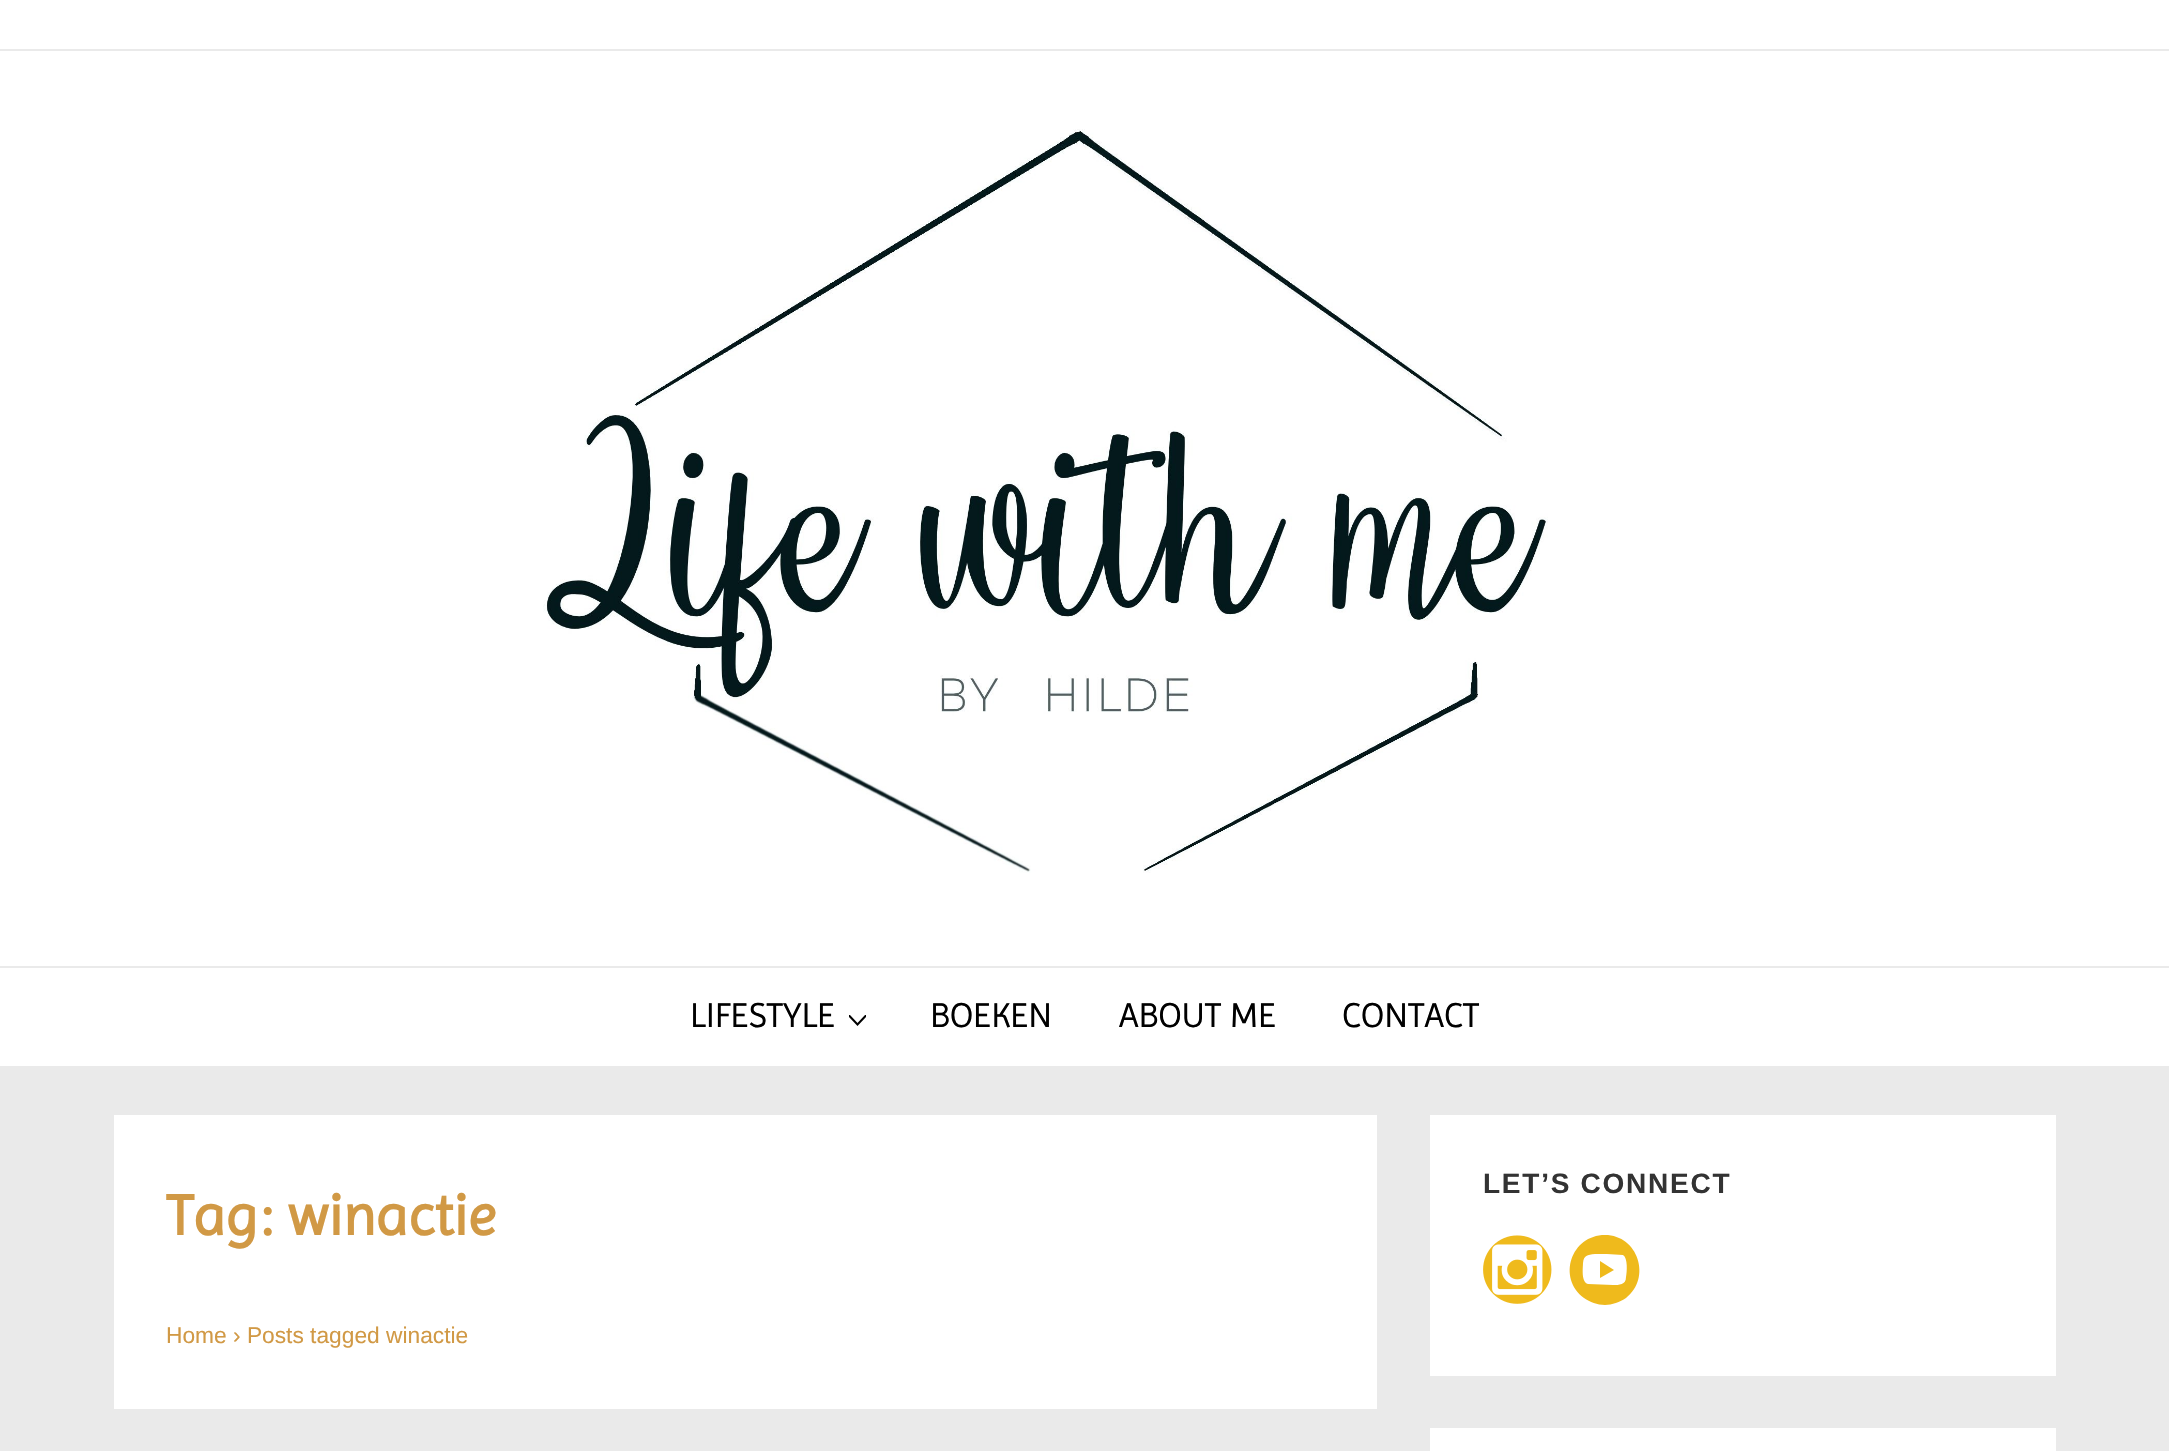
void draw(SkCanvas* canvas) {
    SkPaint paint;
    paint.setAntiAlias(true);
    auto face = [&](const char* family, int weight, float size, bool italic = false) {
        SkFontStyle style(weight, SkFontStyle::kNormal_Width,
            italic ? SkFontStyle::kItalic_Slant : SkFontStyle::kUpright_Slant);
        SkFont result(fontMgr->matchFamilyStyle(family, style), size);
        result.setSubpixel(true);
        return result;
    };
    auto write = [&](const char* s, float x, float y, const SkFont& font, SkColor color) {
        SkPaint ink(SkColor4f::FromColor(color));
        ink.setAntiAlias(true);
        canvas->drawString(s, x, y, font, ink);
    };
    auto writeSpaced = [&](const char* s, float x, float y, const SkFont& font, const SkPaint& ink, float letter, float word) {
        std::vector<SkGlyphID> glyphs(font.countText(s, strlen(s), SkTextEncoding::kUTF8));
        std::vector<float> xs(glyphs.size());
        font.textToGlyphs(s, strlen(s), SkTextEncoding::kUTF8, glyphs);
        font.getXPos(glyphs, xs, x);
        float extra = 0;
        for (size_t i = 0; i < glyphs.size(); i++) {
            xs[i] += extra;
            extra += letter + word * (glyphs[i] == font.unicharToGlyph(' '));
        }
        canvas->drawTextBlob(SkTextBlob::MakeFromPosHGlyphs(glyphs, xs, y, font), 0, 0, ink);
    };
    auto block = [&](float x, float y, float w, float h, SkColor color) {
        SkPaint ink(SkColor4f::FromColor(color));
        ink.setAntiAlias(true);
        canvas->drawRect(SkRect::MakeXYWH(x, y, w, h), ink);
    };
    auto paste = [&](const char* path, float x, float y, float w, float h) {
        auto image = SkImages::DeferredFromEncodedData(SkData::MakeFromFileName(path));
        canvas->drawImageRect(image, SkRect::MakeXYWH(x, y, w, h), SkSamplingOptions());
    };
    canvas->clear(SkColorSetRGB(234, 234, 234));
    block(0, 0, 2169, 49, SK_ColorWHITE);
    block(0, 51, 2169, 1015, SK_ColorWHITE);
    paste("pic1.png", 543, 129, 1005, 744);
    block(0, 966, 2169, 2, SkColorSetRGB(234, 234, 234));
    auto kFont1 = face("Imprima", 400, 35);
    write("LIFESTYLE", 690, 1027, kFont1, SK_ColorBLACK);
    canvas->save();
    canvas->clipRect(SkRect::MakeXYWH(849, 1015, 17, 11));
    paint.setStyle(SkPaint::kStroke_Style);
    paint.setStrokeWidth(2);
    paint.setStrokeCap(SkPaint::kRound_Cap);
    paint.setColor(SK_ColorBLACK);
    canvas->drawPath(SkPathBuilder().moveTo(849.5f, 1016).lineTo(857.5f, 1024.5f).lineTo(865.5f, 1016).detach(), paint);
    canvas->restore();
    write("BOEKEN", 930, 1027, kFont1, SK_ColorBLACK);
    write("ABOUT ME", 1119, 1027, kFont1, SK_ColorBLACK);
    write("CONTACT", 1342, 1027, kFont1, SK_ColorBLACK);
    block(1430, 1115, 626, 261, SK_ColorWHITE);
    auto kFont2 = face("Liberation Sans", 700, 28);
    paint.setStyle(SkPaint::kFill_Style);
    paint.setColor(SkColorSetRGB(51, 51, 51));
    writeSpaced("LET’S CONNECT", 1483, 1193, kFont2, paint, 1.75f, 0);
    paste("pic2.png", 1483, 1235, 69, 69);
    paint.setColor(SkColorSetRGB(239, 186, 28));
    canvas->drawPath(SkPathBuilder().moveTo(1605, 1235).cubicTo(1571, 1235, 1557, 1278, 1584, 1298).cubicTo(1590, 1302, 1597, 1305, 1605, 1305).cubicTo(1612, 1305, 1620, 1302, 1626, 1298).cubicTo(1652, 1278, 1638, 1235, 1605, 1235).close().moveTo(1626, 1277).cubicTo(1626, 1285, 1619, 1285, 1613, 1285).lineTo(1588, 1284).cubicTo(1581, 1282, 1583, 1268, 1583, 1263).cubicTo(1584, 1255, 1587, 1255, 1595, 1254).lineTo(1607, 1254).lineTo(1623, 1255).cubicTo(1628, 1258, 1627, 1272, 1626, 1277).close().moveTo(1600, 1278).lineTo(1614, 1270).lineTo(1600, 1261).close().detach(), paint);
    block(1430, 1428, 626, 23, SK_ColorWHITE);
    block(114, 1115, 1263, 294, SK_ColorWHITE);
    auto kFont3 = face("Imprima", 700, 57.75f);
    write("Tag: winactie", 166, 1235, kFont3, SkColorSetRGB(209, 153, 69));
    auto kFont4 = face("Liberation Sans", 400, 22.75f);
    write("Home › Posts tagged winactie", 166, 1343, kFont4, SkColorSetRGB(209, 153, 69));
}
